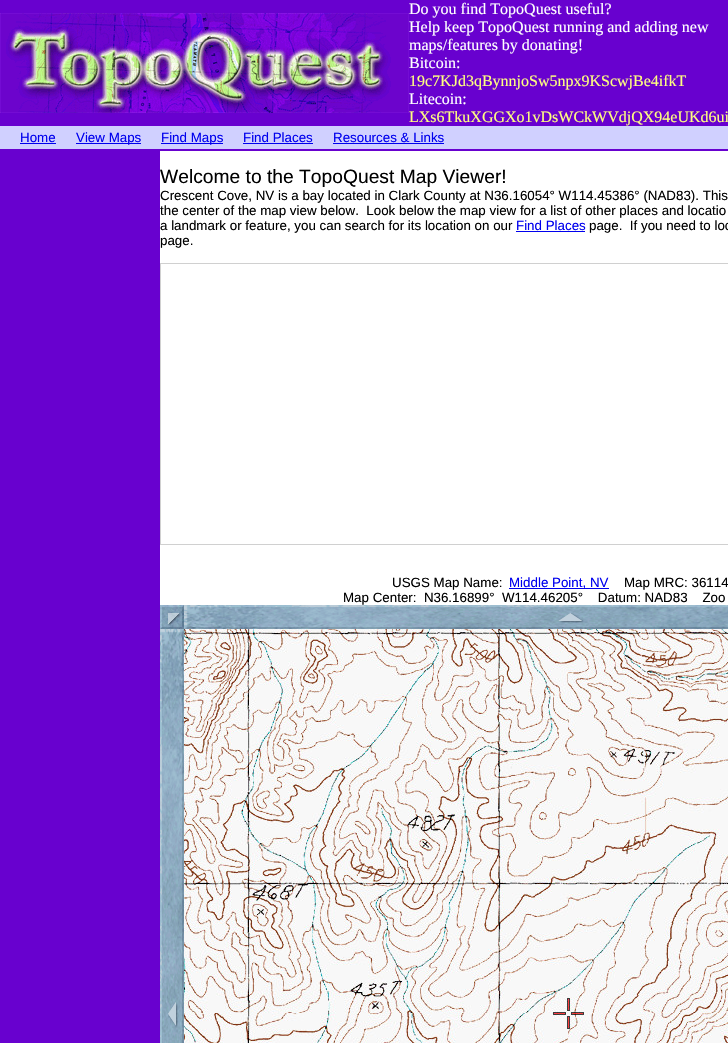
void draw(SkCanvas* canvas) {
    SkPaint paint;
    paint.setAntiAlias(true);
    auto face = [&](const char* family, int weight, float size, bool italic = false) {
        SkFontStyle style(weight, SkFontStyle::kNormal_Width,
            italic ? SkFontStyle::kItalic_Slant : SkFontStyle::kUpright_Slant);
        SkFont result(fontMgr->matchFamilyStyle(family, style), size);
        result.setSubpixel(true);
        return result;
    };
    auto write = [&](const char* s, float x, float y, const SkFont& font, SkColor color) {
        SkPaint ink(SkColor4f::FromColor(color));
        ink.setAntiAlias(true);
        canvas->drawString(s, x, y, font, ink);
    };
    auto block = [&](float x, float y, float w, float h, SkColor color) {
        SkPaint ink(SkColor4f::FromColor(color));
        ink.setAntiAlias(true);
        canvas->drawRect(SkRect::MakeXYWH(x, y, w, h), ink);
    };
    auto paste = [&](const char* path, float x, float y, float w, float h) {
        auto image = SkImages::DeferredFromEncodedData(SkData::MakeFromFileName(path));
        canvas->drawImageRect(image, SkRect::MakeXYWH(x, y, w, h), SkSamplingOptions());
    };
    canvas->clear(SK_ColorWHITE);
    block(0, 0, 728, 126, SkColorSetRGB(104, 1, 207));
    paste("pic1.png", 0, 13, 409, 100);
    auto kFont1 = face("Liberation Serif", 400, 16);
    write("Do you find TopoQuest useful?", 409, 14, kFont1, SK_ColorWHITE);
    write("Help keep TopoQuest running and adding new", 409, 32, kFont1, SK_ColorWHITE);
    write("maps/features by donating!", 409, 50, kFont1, SK_ColorWHITE);
    write("Bitcoin:", 409, 68, kFont1, SK_ColorWHITE);
    write("19c7KJd3qBynnjoSw5npx9KScwjBe4ifkT", 409, 86, kFont1, SkColorSetRGB(255, 255, 128));
    write("Litecoin:", 409, 104, kFont1, SK_ColorWHITE);
    write("LXs6TkuXGGXo1vDsWCkWVdjQX94eUKd6ui", 409, 122, kFont1, SkColorSetRGB(255, 255, 128));
    block(0, 126, 728, 23, SkColorSetRGB(208, 208, 255));
    auto kFont2 = face("Liberation Sans", 400, 13.35f);
    write("Home", 20, 142, kFont2, SkColorSetRGB(0, 0, 238));
    block(20, 143, 36, 1, SkColorSetRGB(0, 0, 238));
    block(76, 143, 65, 1, SkColorSetRGB(0, 0, 238));
    write("View Maps", 76, 142, kFont2, SkColorSetRGB(0, 0, 238));
    block(161, 143, 62, 1, SkColorSetRGB(0, 0, 238));
    write("Find Maps", 161, 142, kFont2, SkColorSetRGB(0, 0, 238));
    write("Find Places", 243, 142, kFont2, SkColorSetRGB(0, 0, 238));
    block(243, 143, 70, 1, SkColorSetRGB(0, 0, 238));
    write("Resources & Links", 333, 142, kFont2, SkColorSetRGB(0, 0, 238));
    block(333, 143, 111, 1, SkColorSetRGB(0, 0, 238));
    block(0, 149, 728, 2, SkColorSetRGB(104, 1, 207));
    block(0, 151, 160, 892, SkColorSetRGB(104, 1, 207));
    auto kFont3 = face("Liberation Sans", 400, 19.25f);
    write("Welcome to the TopoQuest Map Viewer!", 160, 183, kFont3, SK_ColorBLACK);
    write("Crescent Cove, NV is a bay located in Clark County at N36.16054° W114.45386° (NAD83). This", 160, 200, kFont2, SK_ColorBLACK);
    write("the center of the map view below.  Look below the map view for a list of other places and locatio", 160, 215, kFont2, SK_ColorBLACK);
    write("a landmark or feature, you can search for its location on our", 160, 230, kFont2, SK_ColorBLACK);
    write("Find Places", 516, 230, kFont2, SkColorSetRGB(0, 0, 238));
    block(516, 231, 69, 1, SkColorSetRGB(0, 0, 238));
    write("page.  If you need to loc", 589, 230, kFont2, SK_ColorBLACK);
    write("page.", 160, 245, kFont2, SK_ColorBLACK);
    block(160, 263, 568, 1, SkColorSetRGB(208, 208, 208));
    block(160, 264, 1, 281, SkColorSetRGB(208, 208, 208));
    block(161, 544, 567, 1, SkColorSetRGB(208, 208, 208));
    write("USGS Map Name:", 392, 587, kFont2, SK_ColorBLACK);
    block(509, 588, 100, 1, SkColorSetRGB(0, 0, 238));
    write("Middle Point, NV", 509, 587, kFont2, SkColorSetRGB(0, 0, 238));
    write("Map MRC: 36114", 624, 587, kFont2, SK_ColorBLACK);
    write("Map Center:  N36.16899°  W114.46205°    Datum: NAD83    Zoo", 343, 602, kFont2, SK_ColorBLACK);
    paste("pic2.png", 160, 605, 24, 24);
    paste("pic3.png", 184, 605, 544, 24);
    paste("pic4.png", 160, 629, 24, 414);
    paste("pic5.png", 184, 629, 544, 414);
}
